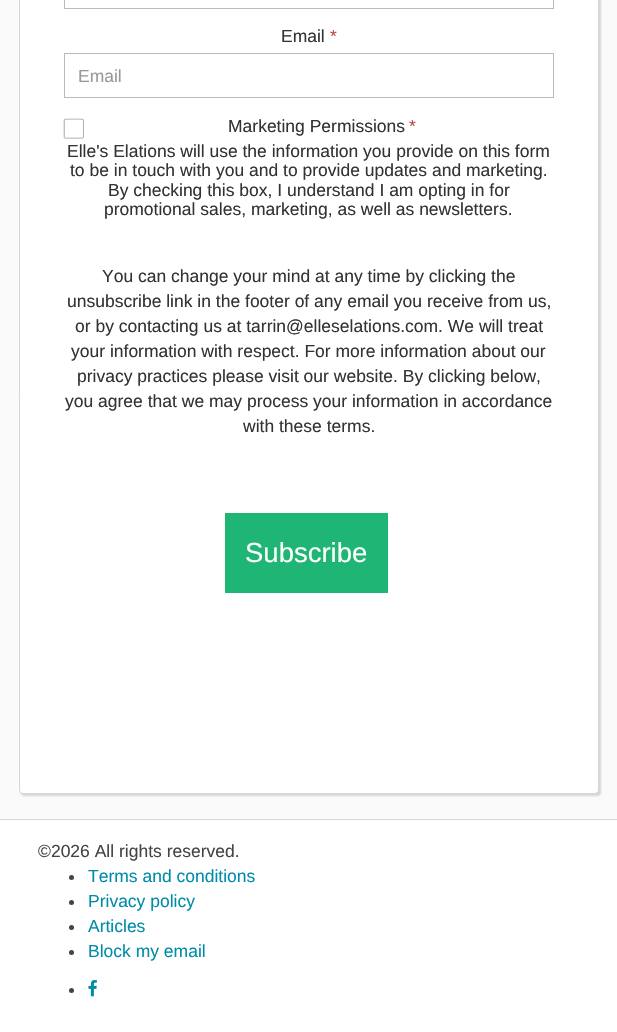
void draw(SkCanvas* canvas) {
    SkPaint paint;
    paint.setAntiAlias(true);
    auto face = [&](const char* family, int weight, float size, bool italic = false) {
        SkFontStyle style(weight, SkFontStyle::kNormal_Width,
            italic ? SkFontStyle::kItalic_Slant : SkFontStyle::kUpright_Slant);
        SkFont result(fontMgr->matchFamilyStyle(family, style), size);
        result.setSubpixel(true);
        return result;
    };
    auto write = [&](const char* s, float x, float y, const SkFont& font, SkColor color) {
        SkPaint ink(SkColor4f::FromColor(color));
        ink.setAntiAlias(true);
        canvas->drawString(s, x, y, font, ink);
    };
    auto block = [&](float x, float y, float w, float h, SkColor color) {
        SkPaint ink(SkColor4f::FromColor(color));
        ink.setAntiAlias(true);
        canvas->drawRect(SkRect::MakeXYWH(x, y, w, h), ink);
    };
    auto paste = [&](const char* path, float x, float y, float w, float h) {
        auto image = SkImages::DeferredFromEncodedData(SkData::MakeFromFileName(path));
        canvas->drawImageRect(image, SkRect::MakeXYWH(x, y, w, h), SkSamplingOptions());
    };
    canvas->clear(SkColorSetRGB(250, 250, 250));
    paint.setColor(SkColorSetARGB(38, 0, 0, 0));
    paint.setMaskFilter(SkMaskFilter::MakeBlur(kNormal_SkBlurStyle, 1));
    canvas->drawRoundRect(SkRect::MakeXYWH(21, -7, 580, 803), 4, 4, paint);
    paint.setMaskFilter(nullptr);
    paint.setColor(SK_ColorWHITE);
    canvas->drawRoundRect(SkRect::MakeXYWH(19.5f, -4.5f, 579, 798), 3.5f, 3.5f, paint);
    paint.setStyle(SkPaint::kStroke_Style);
    paint.setStrokeWidth(1);
    paint.setColor(SkColorSetRGB(210, 214, 222));
    canvas->drawRoundRect(SkRect::MakeXYWH(19.5f, -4.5f, 579, 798), 3.5f, 3.5f, paint);
    paint.setColor(SkColorSetRGB(187, 187, 187));
    canvas->drawRect(SkRect::MakeXYWH(64.5f, -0.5f, 489, 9), paint);
    auto kFont1 = face("Liberation Sans", 400, 17.5f);
    write("Email", 281, 42, kFont1, SkColorSetRGB(51, 51, 51));
    write("*", 330, 42, kFont1, SkColorSetRGB(185, 74, 72));
    canvas->drawRect(SkRect::MakeXYWH(64.5f, 53.5f, 489, 44), paint);
    write("Email", 78, 82, kFont1, SkColorSetRGB(153, 153, 153));
    paste("pic1.png", 63, 118, 21, 21);
    write("Marketing Permissions", 228, 132, kFont1, SkColorSetRGB(51, 51, 51));
    write("*", 409, 132, kFont1, SkColorSetRGB(185, 74, 72));
    write("Elle's Elations will use the information you provide on this form", 67, 157, kFont1, SkColorSetRGB(51, 51, 51));
    write("to be in touch with you and to provide updates and marketing.", 70, 176, kFont1, SkColorSetRGB(51, 51, 51));
    write("By checking this box, I understand I am opting in for", 108, 196, kFont1, SkColorSetRGB(51, 51, 51));
    write("promotional sales, marketing, as well as newsletters.", 104, 215, kFont1, SkColorSetRGB(51, 51, 51));
    write("You can change your mind at any time by clicking the", 102, 282, kFont1, SkColorSetRGB(51, 51, 51));
    write("unsubscribe link in the footer of any email you receive from us,", 67, 307, kFont1, SkColorSetRGB(51, 51, 51));
    write("or by contacting us at tarrin@elleselations.com. We will treat", 75, 332, kFont1, SkColorSetRGB(51, 51, 51));
    write("your information with respect. For more information about our", 71, 357, kFont1, SkColorSetRGB(51, 51, 51));
    write("privacy practices please visit our website. By clicking below,", 77, 382, kFont1, SkColorSetRGB(51, 51, 51));
    write("you agree that we may process your information in accordance", 65, 407, kFont1, SkColorSetRGB(51, 51, 51));
    write("with these terms.", 243, 432, kFont1, SkColorSetRGB(51, 51, 51));
    block(225, 513, 163, 80, SkColorSetRGB(31, 182, 117));
    auto kFont2 = face("Liberation Sans", 400, 27.5f);
    write("Subscribe", 245, 562, kFont2, SK_ColorWHITE);
    block(0, 820, 617, 212, SK_ColorWHITE);
    block(0, 819, 617, 1, SkColorSetRGB(210, 214, 222));
    write("©2026 All rights reserved.", 38, 857, kFont1, SkColorSetRGB(68, 68, 68));
    paint.setStyle(SkPaint::kFill_Style);
    paint.setColor(SkColorSetRGB(68, 68, 68));
    canvas->drawCircle(71.5f, 877.5f, 2.5f, paint);
    write("Terms and conditions", 88, 882, kFont1, SkColorSetRGB(0, 140, 169));
    canvas->drawCircle(71.5f, 902.5f, 2.5f, paint);
    write("Privacy policy", 88, 907, kFont1, SkColorSetRGB(0, 140, 169));
    canvas->drawCircle(71.5f, 927.5f, 2.5f, paint);
    write("Articles", 88, 932, kFont1, SkColorSetRGB(0, 140, 169));
    canvas->drawCircle(71.5f, 952.5f, 2.5f, paint);
    write("Block my email", 88, 957, kFont1, SkColorSetRGB(0, 140, 169));
    canvas->drawCircle(71.5f, 990.5f, 2.5f, paint);
    paste("pic2.png", 88, 980, 9, 17);
}
